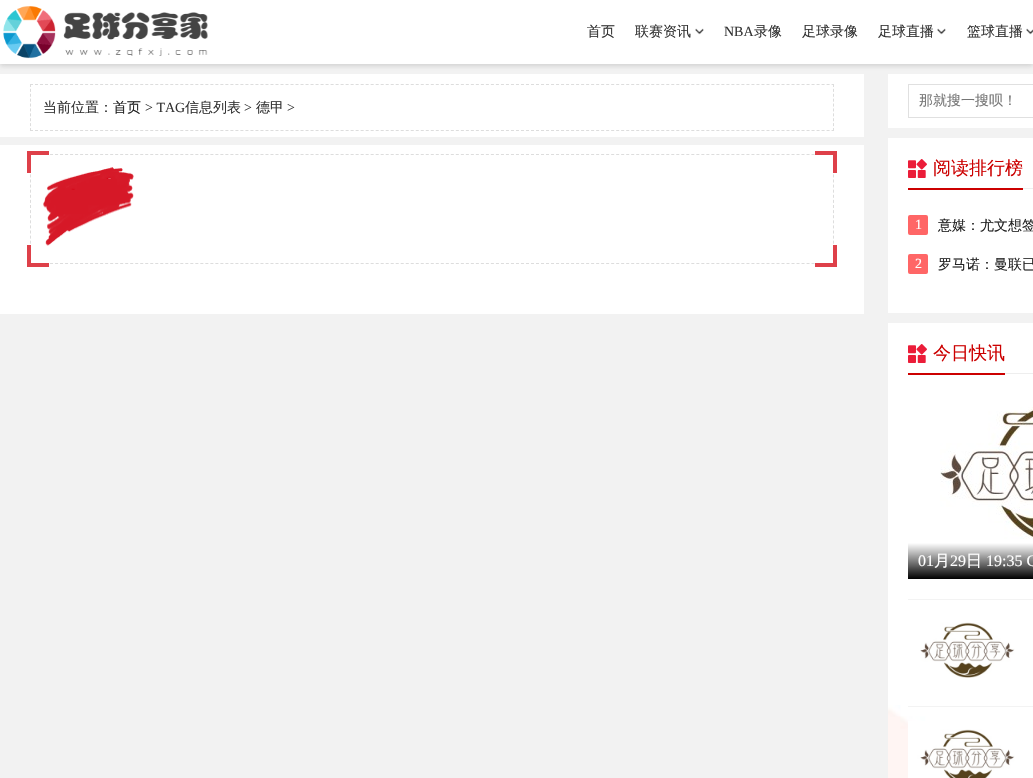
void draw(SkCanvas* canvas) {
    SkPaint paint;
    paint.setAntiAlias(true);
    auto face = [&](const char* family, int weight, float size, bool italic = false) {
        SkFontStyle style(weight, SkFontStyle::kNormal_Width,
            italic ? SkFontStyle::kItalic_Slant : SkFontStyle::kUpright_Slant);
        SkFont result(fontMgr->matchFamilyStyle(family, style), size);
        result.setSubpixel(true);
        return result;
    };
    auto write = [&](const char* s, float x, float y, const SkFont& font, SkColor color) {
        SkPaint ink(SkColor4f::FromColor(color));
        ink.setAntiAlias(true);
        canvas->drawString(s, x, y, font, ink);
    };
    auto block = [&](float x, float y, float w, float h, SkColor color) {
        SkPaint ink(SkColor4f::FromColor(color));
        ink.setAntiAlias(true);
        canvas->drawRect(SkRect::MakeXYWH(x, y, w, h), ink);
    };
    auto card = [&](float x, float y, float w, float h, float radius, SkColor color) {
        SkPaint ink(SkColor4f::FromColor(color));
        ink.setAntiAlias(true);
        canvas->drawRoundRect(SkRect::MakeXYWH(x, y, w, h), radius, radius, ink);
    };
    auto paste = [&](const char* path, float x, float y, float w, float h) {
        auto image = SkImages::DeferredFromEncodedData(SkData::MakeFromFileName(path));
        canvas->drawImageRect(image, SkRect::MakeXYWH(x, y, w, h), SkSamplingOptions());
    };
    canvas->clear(SkColorSetRGB(242, 242, 242));
    block(0, 74, 864, 240, SK_ColorWHITE);
    block(888, 74, 145, 54, SK_ColorWHITE);
    paint.setColor(SkColorSetARGB(128, 173, 173, 173));
    paint.setMaskFilter(SkMaskFilter::MakeBlur(kNormal_SkBlurStyle, 2.5f));
    canvas->drawRect(SkRect::MakeXYWH(0, 2, 1033, 64), paint);
    paint.setMaskFilter(nullptr);
    block(0, 0, 1033, 64, SK_ColorWHITE);
    paste("pic1.png", 3, 6, 205, 53);
    auto kFont1 = face("WenQuanYi Zen Hei", 500, 14);
    write("首页", 587, 36, kFont1, SkColorSetRGB(51, 51, 51));
    write("联赛资讯", 635, 36, kFont1, SkColorSetRGB(51, 51, 51));
    paste("pic2.png", 695, 28, 9, 7);
    auto kFont2 = face("Liberation Serif", 400, 14);
    write("NBA", 724, 36, kFont2, SkColorSetRGB(51, 51, 51));
    write("录像", 754, 36, kFont1, SkColorSetRGB(51, 51, 51));
    write("足球录像", 802, 36, kFont1, SkColorSetRGB(51, 51, 51));
    write("足球直播", 878, 36, kFont1, SkColorSetRGB(51, 51, 51));
    paste("pic2.png", 937, 28, 9, 7);
    write("篮球直播", 967, 36, kFont1, SkColorSetRGB(51, 51, 51));
    paste("pic3.png", 1026, 28, 7, 7);
    paint.setStyle(SkPaint::kStroke_Style);
    paint.setStrokeWidth(1);
    paint.setColor(SkColorSetRGB(221, 221, 221));
    paint.setPathEffect(SkDashPathEffect::Make({{3, 2.01f}}, 0));
    canvas->drawPath(SkPathBuilder().moveTo(30, 84.5f).lineTo(834, 84.5f).detach(), paint);
    paint.setPathEffect(nullptr);
    paint.setPathEffect(SkDashPathEffect::Make({{3, 1.89f}}, 0));
    canvas->drawPath(SkPathBuilder().moveTo(833.5f, 84).lineTo(833.5f, 131).detach(), paint);
    paint.setPathEffect(nullptr);
    paint.setPathEffect(SkDashPathEffect::Make({{3, 2.01f}}, 0));
    canvas->drawPath(SkPathBuilder().moveTo(30, 130.5f).lineTo(834, 130.5f).detach(), paint);
    paint.setPathEffect(nullptr);
    paint.setPathEffect(SkDashPathEffect::Make({{3, 1.89f}}, 0));
    canvas->drawPath(SkPathBuilder().moveTo(30.5f, 84).lineTo(30.5f, 131).detach(), paint);
    paint.setPathEffect(nullptr);
    write("当前位置：", 43, 112, kFont1, SkColorSetRGB(51, 51, 51));
    write("首页", 113, 112, kFont1, SkColorSetRGB(34, 34, 34));
    write("> TAG", 145, 112, kFont2, SkColorSetRGB(51, 51, 51));
    write("信息列表", 185, 112, kFont1, SkColorSetRGB(51, 51, 51));
    write(">", 244, 112, kFont2, SkColorSetRGB(51, 51, 51));
    write("德甲", 256, 112, kFont1, SkColorSetRGB(51, 51, 51));
    write(">", 287, 112, kFont2, SkColorSetRGB(51, 51, 51));
    block(0, 137, 864, 8, SkColorSetRGB(242, 242, 242));
    paint.setPathEffect(SkDashPathEffect::Make({{3, 2.01f}}, 0));
    canvas->drawPath(SkPathBuilder().moveTo(30, 154.5f).lineTo(834, 154.5f).detach(), paint);
    paint.setPathEffect(nullptr);
    paint.setPathEffect(SkDashPathEffect::Make({{3, 2.1f}}, 0));
    canvas->drawPath(SkPathBuilder().moveTo(833.5f, 154).lineTo(833.5f, 264).detach(), paint);
    paint.setPathEffect(nullptr);
    paint.setPathEffect(SkDashPathEffect::Make({{3, 2.01f}}, 0));
    canvas->drawPath(SkPathBuilder().moveTo(30, 263.5f).lineTo(834, 263.5f).detach(), paint);
    paint.setPathEffect(nullptr);
    paint.setPathEffect(SkDashPathEffect::Make({{3, 2.1f}}, 0));
    canvas->drawPath(SkPathBuilder().moveTo(30.5f, 154).lineTo(30.5f, 264).detach(), paint);
    paint.setPathEffect(nullptr);
    block(27, 151, 22, 4, SkColorSetRGB(222, 64, 73));
    block(27, 151, 4, 22, SkColorSetRGB(222, 64, 73));
    block(815, 151, 22, 4, SkColorSetRGB(222, 64, 73));
    block(833, 151, 4, 22, SkColorSetRGB(222, 64, 73));
    paste("pic4.png", 43, 167, 91, 79);
    block(27, 263, 22, 4, SkColorSetRGB(222, 64, 73));
    block(27, 245, 4, 22, SkColorSetRGB(222, 64, 73));
    block(833, 245, 4, 22, SkColorSetRGB(222, 64, 73));
    block(815, 263, 22, 4, SkColorSetRGB(222, 64, 73));
    paint.setColor(SkColorSetRGB(224, 224, 224));
    canvas->drawRect(SkRect::MakeXYWH(908.5f, 84.5f, 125, 33), paint);
    write("那就搜一搜呗！", 919, 105, kFont1, SkColorSetRGB(117, 117, 117));
    block(888, 138, 145, 175, SK_ColorWHITE);
    block(1023, 188, 10, 1, SkColorSetRGB(238, 238, 238));
    paste("pic5.png", 908, 159, 19, 19);
    block(908, 188, 115, 2, SkColorSetRGB(204, 0, 0));
    auto kFont3 = face("WenQuanYi Zen Hei", 500, 18);
    write("阅读排行榜", 933, 174, kFont3, SkColorSetRGB(204, 0, 0));
    card(908, 215, 20, 20, 2, SkColorSetRGB(255, 102, 102));
    write("1", 915, 229, kFont2, SK_ColorWHITE);
    write("意媒：尤文想签", 938, 230, kFont1, SkColorSetRGB(34, 34, 34));
    card(908, 254, 20, 20, 2, SkColorSetRGB(255, 102, 102));
    write("2", 915, 268, kFont2, SK_ColorWHITE);
    write("罗马诺：曼联已", 938, 269, kFont1, SkColorSetRGB(34, 34, 34));
    block(888, 323, 145, 455, SK_ColorWHITE);
    paste("pic6.png", 888, 705, 108, 73);
    block(1005, 373, 28, 1, SkColorSetRGB(238, 238, 238));
    paste("pic5.png", 908, 344, 19, 19);
    block(908, 373, 97, 2, SkColorSetRGB(204, 0, 0));
    write("今日快讯", 933, 359, kFont3, SkColorSetRGB(204, 0, 0));
    paste("pic7.png", 940, 407, 93, 132);
    paint.setStyle(SkPaint::kFill_Style);
    {
        const SkColor colors[] = {SK_ColorWHITE, SK_ColorBLACK};
        const float stops[] = {0, 1};
        const SkPoint ends[] = {{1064, 543}, {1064, 579}};
        paint.setShader(SkGradientShader::MakeLinear(ends, colors, stops, 2, SkTileMode::kClamp));
        paint.setAlpha(255);
    }
    canvas->drawRect(SkRect::MakeXYWH(908, 543, 125, 36), paint);
    auto kFont4 = face("Liberation Serif", 400, 16);
    write("01", 918, 566, kFont4, SK_ColorWHITE);
    auto kFont5 = face("WenQuanYi Zen Hei", 500, 16);
    write("月", 934, 566, kFont5, SK_ColorWHITE);
    write("29", 950, 566, kFont4, SK_ColorWHITE);
    write("日", 966, 566, kFont5, SK_ColorWHITE);
    write("19:35 C", 986, 566, kFont4, SK_ColorWHITE);
    block(908, 599, 125, 1, SkColorSetRGB(243, 243, 243));
    paste("pic8.png", 920, 622, 95, 56);
    block(908, 706, 125, 1, SkColorSetRGB(243, 243, 243));
    paste("pic9.png", 908, 721, 107, 57);
}
